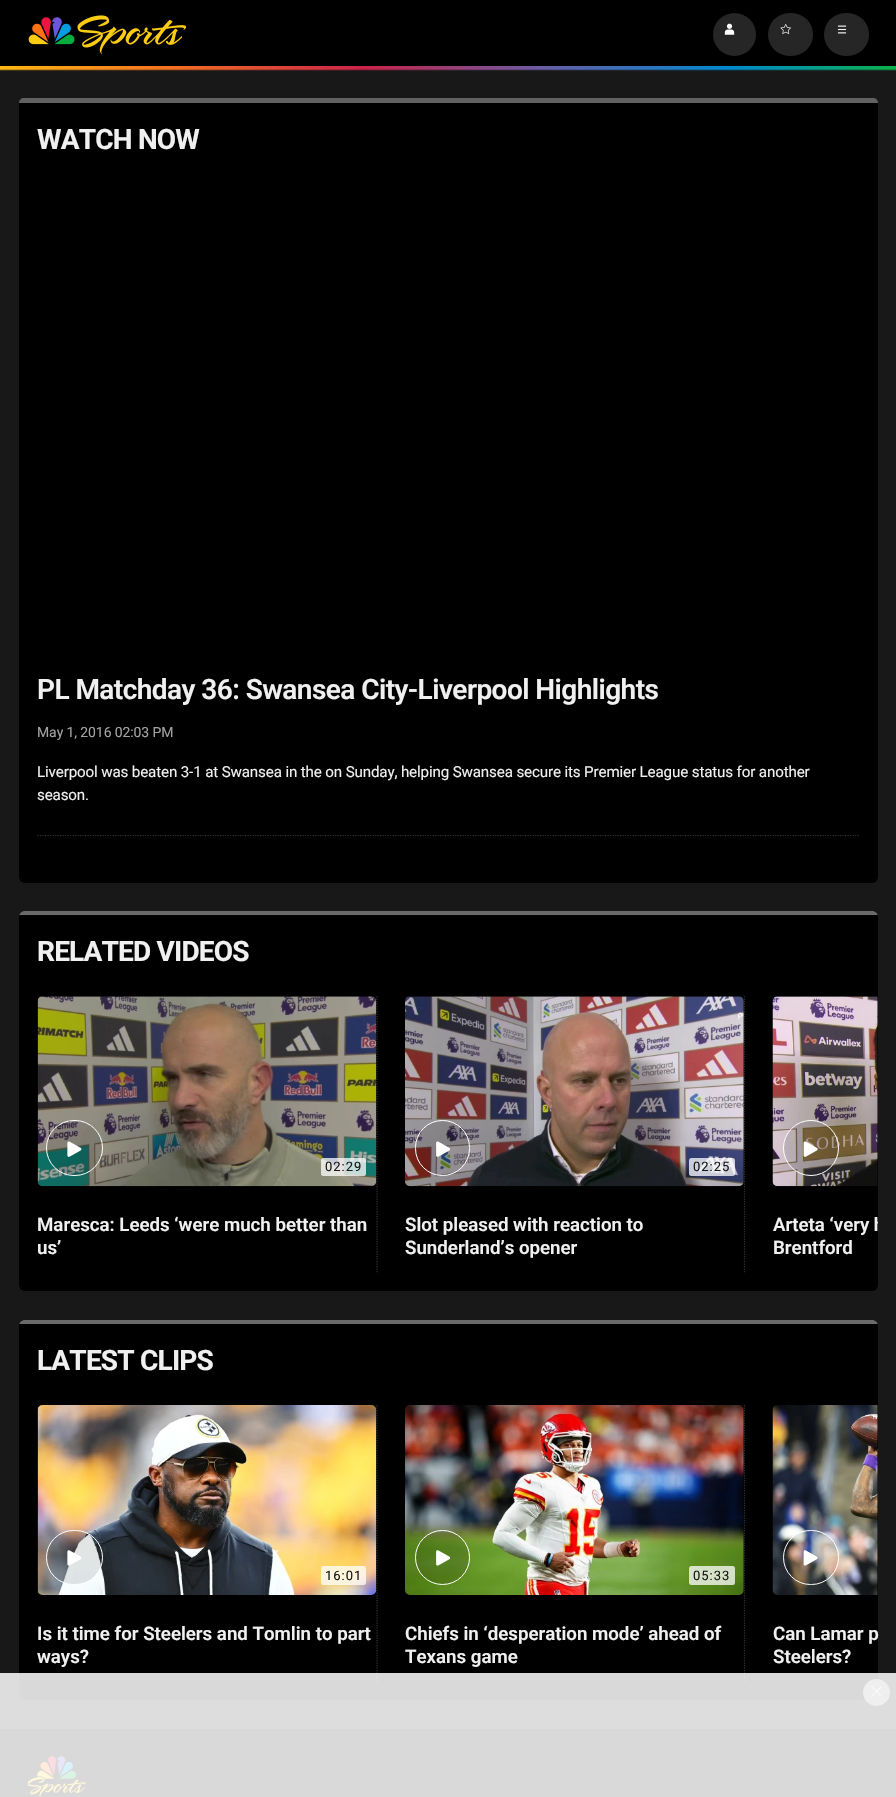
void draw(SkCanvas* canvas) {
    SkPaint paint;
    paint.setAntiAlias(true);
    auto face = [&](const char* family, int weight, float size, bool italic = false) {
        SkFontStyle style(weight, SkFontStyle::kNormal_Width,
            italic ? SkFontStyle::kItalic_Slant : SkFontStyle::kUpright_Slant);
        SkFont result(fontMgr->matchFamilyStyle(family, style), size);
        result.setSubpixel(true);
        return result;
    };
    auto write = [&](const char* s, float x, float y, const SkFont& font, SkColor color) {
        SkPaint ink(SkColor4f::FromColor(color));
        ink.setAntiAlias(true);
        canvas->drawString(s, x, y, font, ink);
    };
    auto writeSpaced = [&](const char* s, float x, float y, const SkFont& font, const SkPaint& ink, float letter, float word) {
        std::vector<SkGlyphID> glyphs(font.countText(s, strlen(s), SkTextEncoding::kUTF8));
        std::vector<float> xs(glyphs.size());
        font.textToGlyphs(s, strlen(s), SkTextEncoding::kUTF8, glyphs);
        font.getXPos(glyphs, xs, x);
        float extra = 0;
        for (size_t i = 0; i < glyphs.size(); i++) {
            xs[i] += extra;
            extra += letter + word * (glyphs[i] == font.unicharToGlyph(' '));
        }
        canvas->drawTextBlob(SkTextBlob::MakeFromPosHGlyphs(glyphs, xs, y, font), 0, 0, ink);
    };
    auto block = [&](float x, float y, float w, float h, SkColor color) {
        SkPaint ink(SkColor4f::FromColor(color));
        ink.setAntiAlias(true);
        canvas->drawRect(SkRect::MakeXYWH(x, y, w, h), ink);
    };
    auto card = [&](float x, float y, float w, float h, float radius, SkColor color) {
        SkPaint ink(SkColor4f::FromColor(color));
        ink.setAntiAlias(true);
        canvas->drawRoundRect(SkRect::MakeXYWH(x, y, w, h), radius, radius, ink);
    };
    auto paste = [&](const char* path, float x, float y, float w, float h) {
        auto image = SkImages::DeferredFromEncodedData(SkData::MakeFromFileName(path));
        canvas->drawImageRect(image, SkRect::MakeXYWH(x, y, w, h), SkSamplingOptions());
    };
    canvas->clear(SkColorSetRGB(24, 24, 24));
    block(0, 0, 896, 70, SK_ColorBLACK);
    paste("pic1.png", 28, 15, 158, 39);
    paint.setColor(SkColorSetRGB(38, 38, 38));
    canvas->drawCircle(734.5f, 34.5f, 21.5f, paint);
    paste("pic2.png", 724, 23, 11, 12);
    card(768, 13, 45, 43, 21.5f, SkColorSetRGB(38, 38, 38));
    paste("pic3.png", 780, 23, 12, 12);
    card(824, 13, 45, 43, 21.5f, SkColorSetRGB(38, 38, 38));
    paste("pic4.png", 837, 25, 10, 9);
    paste("pic5.png", 0, 66, 896, 5);
    card(19, 98, 859, 785, 6, SK_ColorBLACK);
    paint.setColor(SkColorSetRGB(97, 97, 97));
    canvas->drawPath(SkPathBuilder().moveTo(24, 98).lineTo(873, 98).cubicTo(876, 98, 878, 100, 878, 103).lineTo(19, 103).cubicTo(19, 100, 21, 98, 24, 98).close().detach(), paint);
    paint.setStyle(SkPaint::kStroke_Style);
    paint.setStrokeWidth(1.2f);
    paint.setColor(SkColorSetRGB(51, 51, 51));
    paint.setPathEffect(SkDashPathEffect::Make({{1.25f, 1.25f}}, 0));
    canvas->drawPath(SkPathBuilder().moveTo(37.5f, 835.5f).lineTo(859, 835.5f).detach(), paint);
    paint.setPathEffect(nullptr);
    auto kFont1 = face("Roboto", 700, 28);
    paint.setStyle(SkPaint::kFill_Style);
    paint.setColor(SkColorSetRGB(240, 240, 240));
    writeSpaced("WATCH NOW", 37, 149, kFont1, paint, -0.8f, 0);
    auto kFont2 = face("Roboto", 600, 28);
    writeSpaced("PL Matchday 36: Swansea City-Liverpool Highlights", 37, 699, kFont2, paint, -0.55f, 0);
    auto kFont3 = face("Roboto", 400, 14);
    paint.setColor(SkColorSetRGB(163, 163, 163));
    writeSpaced("May 1, 2016 02:03 PM", 37, 737, kFont3, paint, -0.1f, 0);
    auto kFont4 = face("Roboto", 400, 15.17f);
    paint.setColor(SkColorSetRGB(240, 240, 240));
    writeSpaced("Liverpool was beaten 3-1 at Swansea in the on Sunday, helping Swansea secure its Premier League status for another", 37, 777, kFont4, paint, -0.15f, 0);
    writeSpaced("season.", 37, 800, kFont4, paint, -0.15f, 0);
    card(19, 911, 859, 380, 6, SK_ColorBLACK);
    canvas->save();
    canvas->clipPath(SkPathBuilder().moveTo(25, 911).lineTo(872, 911).cubicTo(875.5f, 911, 878, 913.5f, 878, 917).lineTo(878, 1285).cubicTo(878, 1288.5f, 875.5f, 1291, 872, 1291).lineTo(25, 1291).cubicTo(21.5f, 1291, 19, 1288.5f, 19, 1285).lineTo(19, 917).cubicTo(19, 913.5f, 21.5f, 911, 25, 911).close().detach(), true);
    paint.setColor(SkColorSetRGB(106, 106, 106));
    canvas->drawPath(SkPathBuilder().moveTo(23, 911).lineTo(874, 911).cubicTo(876, 911, 878, 913, 878, 915).lineTo(19, 915).cubicTo(19, 913, 21, 911, 23, 911).close().detach(), paint);
    canvas->restore();
    paint.setColor(SkColorSetRGB(240, 240, 240));
    writeSpaced("RELATED VIDEOS", 37, 961, kFont1, paint, -0.8f, 0);
    paint.setStyle(SkPaint::kStroke_Style);
    paint.setColor(SkColorSetRGB(51, 51, 51));
    paint.setPathEffect(SkDashPathEffect::Make({{1.25f, 1.25f}}, 0));
    canvas->drawPath(SkPathBuilder().moveTo(377, 996).lineTo(377, 1272.5f).detach(), paint);
    paint.setPathEffect(nullptr);
    paste("pic6.png", 37, 996, 340, 191);
    paint.setStyle(SkPaint::kFill_Style);
    paint.setColor(SkColorSetARGB(26, 0, 0, 0));
    canvas->drawRoundRect(SkRect::MakeXYWH(46.5f, 1120.5f, 56, 55), 27.5f, 27.5f, paint);
    paint.setStyle(SkPaint::kStroke_Style);
    paint.setStrokeWidth(1);
    paint.setColor(SK_ColorWHITE);
    canvas->drawRoundRect(SkRect::MakeXYWH(46.5f, 1120.5f, 56, 55), 27.5f, 27.5f, paint);
    paste("pic7.png", 67, 1141, 15, 16);
    card(321, 1158, 45, 18, 2.5f, SkColorSetARGB(191, 255, 255, 255));
    auto kFont5 = face("Roboto", 400, 13);
    paint.setStyle(SkPaint::kFill_Style);
    paint.setColor(SkColorSetRGB(24, 24, 24));
    writeSpaced("02:29", 325, 1171, kFont5, paint, 1, 0);
    auto kFont6 = face("Roboto", 600, 18.7f);
    write("Maresca: Leeds ‘were much better than", 37, 1231, kFont6, SkColorSetRGB(240, 240, 240));
    write("us’", 37, 1254, kFont6, SkColorSetRGB(240, 240, 240));
    paint.setStyle(SkPaint::kStroke_Style);
    paint.setStrokeWidth(1.2f);
    paint.setColor(SkColorSetRGB(51, 51, 51));
    paint.setPathEffect(SkDashPathEffect::Make({{1.25f, 1.25f}}, 0));
    canvas->drawPath(SkPathBuilder().moveTo(744.5f, 996).lineTo(744.5f, 1272.5f).detach(), paint);
    paint.setPathEffect(nullptr);
    paste("pic8.png", 405, 996, 339, 191);
    paint.setStyle(SkPaint::kFill_Style);
    paint.setColor(SkColorSetARGB(26, 0, 0, 0));
    canvas->drawRoundRect(SkRect::MakeXYWH(415.5f, 1120.5f, 54, 55), 27, 27, paint);
    paint.setStyle(SkPaint::kStroke_Style);
    paint.setStrokeWidth(1);
    paint.setColor(SK_ColorWHITE);
    canvas->drawRoundRect(SkRect::MakeXYWH(415.5f, 1120.5f, 54, 55), 27, 27, paint);
    paste("pic9.png", 436, 1141, 15, 16);
    card(689, 1158, 46, 18, 2.5f, SkColorSetARGB(191, 255, 255, 255));
    paint.setStyle(SkPaint::kFill_Style);
    paint.setColor(SkColorSetRGB(24, 24, 24));
    writeSpaced("02:25", 693, 1171, kFont5, paint, 1, 0);
    write("Slot pleased with reaction to", 405, 1231, kFont6, SkColorSetRGB(240, 240, 240));
    write("Sunderland’s opener", 405, 1254, kFont6, SkColorSetRGB(240, 240, 240));
    paste("pic10.png", 772, 996, 106, 191);
    paint.setColor(SkColorSetARGB(26, 0, 0, 0));
    canvas->drawCircle(811, 1148, 27.5f, paint);
    paint.setStyle(SkPaint::kStroke_Style);
    paint.setColor(SK_ColorWHITE);
    canvas->drawCircle(811, 1148, 27.5f, paint);
    paste("pic11.png", 803, 1141, 15, 16);
    canvas->save();
    canvas->clipPath(SkPathBuilder().moveTo(25, 911).lineTo(872, 911).cubicTo(875.5f, 911, 878, 913.5f, 878, 917).lineTo(878, 1285).cubicTo(878, 1288.5f, 875.5f, 1291, 872, 1291).lineTo(25, 1291).cubicTo(21.5f, 1291, 19, 1288.5f, 19, 1285).lineTo(19, 917).cubicTo(19, 913.5f, 21.5f, 911, 25, 911).close().detach(), true);
    write("Arteta ‘very h", 773, 1231, kFont6, SkColorSetRGB(240, 240, 240));
    canvas->restore();
    write("Brentford", 773, 1254, kFont6, SkColorSetRGB(240, 240, 240));
    card(19, 1320, 859, 380, 6, SK_ColorBLACK);
    canvas->save();
    canvas->clipPath(SkPathBuilder().moveTo(25, 1320).lineTo(872, 1320).cubicTo(875.5f, 1320, 878, 1322.5f, 878, 1326).lineTo(878, 1694).cubicTo(878, 1697.5f, 875.5f, 1700, 872, 1700).lineTo(25, 1700).cubicTo(21.5f, 1700, 19, 1697.5f, 19, 1694).lineTo(19, 1326).cubicTo(19, 1322.5f, 21.5f, 1320, 25, 1320).close().detach(), true);
    paint.setStyle(SkPaint::kFill_Style);
    paint.setColor(SkColorSetRGB(106, 106, 106));
    canvas->drawPath(SkPathBuilder().moveTo(23, 1320).lineTo(874, 1320).cubicTo(876, 1320, 878, 1322, 878, 1324).lineTo(19, 1324).cubicTo(19, 1322, 21, 1320, 23, 1320).close().detach(), paint);
    canvas->restore();
    paint.setColor(SkColorSetRGB(240, 240, 240));
    writeSpaced("LATEST CLIPS", 37, 1370, kFont1, paint, -0.8f, 0);
    paint.setStyle(SkPaint::kStroke_Style);
    paint.setStrokeWidth(1.2f);
    paint.setColor(SkColorSetRGB(51, 51, 51));
    paint.setPathEffect(SkDashPathEffect::Make({{1.25f, 1.25f}}, 0));
    canvas->drawPath(SkPathBuilder().moveTo(377, 1405).lineTo(377, 1682.5f).detach(), paint);
    paint.setPathEffect(nullptr);
    paste("pic12.png", 37, 1405, 340, 190);
    paint.setStyle(SkPaint::kFill_Style);
    paint.setColor(SkColorSetARGB(26, 0, 0, 0));
    canvas->drawRoundRect(SkRect::MakeXYWH(46.5f, 1530.5f, 56, 54), 27, 27, paint);
    paint.setStyle(SkPaint::kStroke_Style);
    paint.setStrokeWidth(1);
    paint.setColor(SK_ColorWHITE);
    canvas->drawRoundRect(SkRect::MakeXYWH(46.5f, 1530.5f, 56, 54), 27, 27, paint);
    paste("pic13.png", 67, 1550, 15, 16);
    card(321, 1566, 45, 19, 2.5f, SkColorSetARGB(191, 255, 255, 255));
    paint.setStyle(SkPaint::kFill_Style);
    paint.setColor(SkColorSetRGB(24, 24, 24));
    writeSpaced("16:01", 325, 1580, kFont5, paint, 1, 0);
    write("Is it time for Steelers and Tomlin to part", 37, 1640, kFont6, SkColorSetRGB(240, 240, 240));
    write("ways?", 37, 1663, kFont6, SkColorSetRGB(240, 240, 240));
    paint.setStyle(SkPaint::kStroke_Style);
    paint.setStrokeWidth(1.2f);
    paint.setColor(SkColorSetRGB(51, 51, 51));
    paint.setPathEffect(SkDashPathEffect::Make({{1.25f, 1.25f}}, 0));
    canvas->drawPath(SkPathBuilder().moveTo(744.5f, 1405).lineTo(744.5f, 1682.5f).detach(), paint);
    paint.setPathEffect(nullptr);
    paste("pic14.png", 405, 1405, 339, 190);
    paint.setStyle(SkPaint::kFill_Style);
    paint.setColor(SkColorSetARGB(26, 0, 0, 0));
    canvas->drawCircle(442.5f, 1557.5f, 27, paint);
    paint.setStyle(SkPaint::kStroke_Style);
    paint.setStrokeWidth(1);
    paint.setColor(SK_ColorWHITE);
    canvas->drawCircle(442.5f, 1557.5f, 27, paint);
    paste("pic15.png", 436, 1550, 15, 16);
    card(689, 1566, 46, 19, 2.5f, SkColorSetARGB(191, 255, 255, 255));
    paint.setStyle(SkPaint::kFill_Style);
    paint.setColor(SkColorSetRGB(24, 24, 24));
    writeSpaced("05:33", 693, 1580, kFont5, paint, 1, 0);
    write("Chiefs in ‘desperation mode’ ahead of", 405, 1640, kFont6, SkColorSetRGB(240, 240, 240));
    write("Texans game", 405, 1663, kFont6, SkColorSetRGB(240, 240, 240));
    paste("pic16.png", 772, 1405, 106, 190);
    paint.setColor(SkColorSetARGB(26, 0, 0, 0));
    canvas->drawRoundRect(SkRect::MakeXYWH(783.5f, 1530.5f, 55, 54), 27, 27, paint);
    paint.setStyle(SkPaint::kStroke_Style);
    paint.setColor(SK_ColorWHITE);
    canvas->drawRoundRect(SkRect::MakeXYWH(783.5f, 1530.5f, 55, 54), 27, 27, paint);
    paste("pic17.png", 803, 1550, 15, 16);
    write("Can Lamar p", 773, 1640, kFont6, SkColorSetRGB(240, 240, 240));
    write("Steelers?", 773, 1663, kFont6, SkColorSetRGB(240, 240, 240));
    block(0, 1729, 896, 68, SK_ColorBLACK);
    paste("pic19.png", 28, 1756, 58, 41);
    block(0, 1673, 896, 124, SkColorSetARGB(217, 255, 255, 255));
    paint.setStyle(SkPaint::kFill_Style);
    paint.setColor(SkColorSetRGB(239, 239, 239));
    canvas->drawCircle(876.5f, 1692.5f, 13.5f, paint);
    paste("pic18.png", 871, 1686, 10, 11);
}
